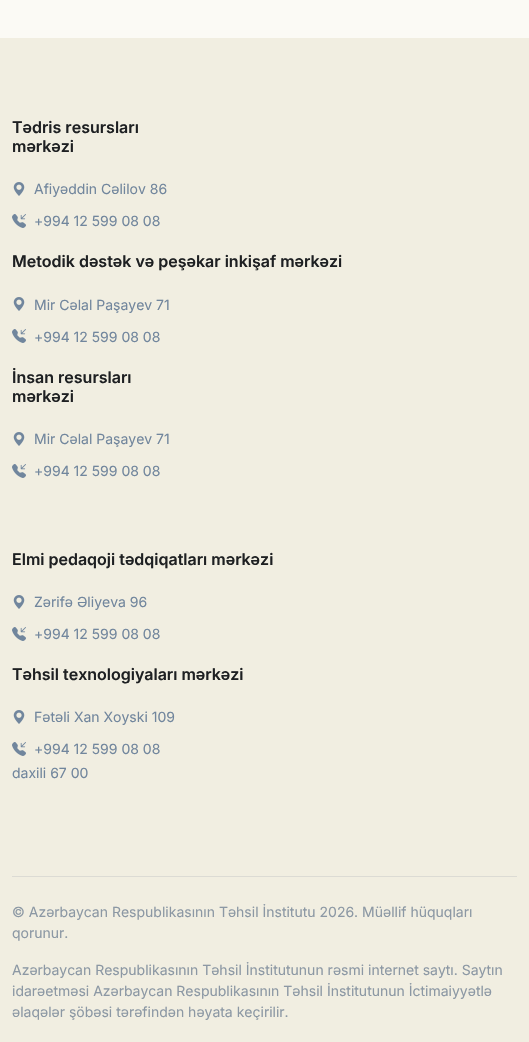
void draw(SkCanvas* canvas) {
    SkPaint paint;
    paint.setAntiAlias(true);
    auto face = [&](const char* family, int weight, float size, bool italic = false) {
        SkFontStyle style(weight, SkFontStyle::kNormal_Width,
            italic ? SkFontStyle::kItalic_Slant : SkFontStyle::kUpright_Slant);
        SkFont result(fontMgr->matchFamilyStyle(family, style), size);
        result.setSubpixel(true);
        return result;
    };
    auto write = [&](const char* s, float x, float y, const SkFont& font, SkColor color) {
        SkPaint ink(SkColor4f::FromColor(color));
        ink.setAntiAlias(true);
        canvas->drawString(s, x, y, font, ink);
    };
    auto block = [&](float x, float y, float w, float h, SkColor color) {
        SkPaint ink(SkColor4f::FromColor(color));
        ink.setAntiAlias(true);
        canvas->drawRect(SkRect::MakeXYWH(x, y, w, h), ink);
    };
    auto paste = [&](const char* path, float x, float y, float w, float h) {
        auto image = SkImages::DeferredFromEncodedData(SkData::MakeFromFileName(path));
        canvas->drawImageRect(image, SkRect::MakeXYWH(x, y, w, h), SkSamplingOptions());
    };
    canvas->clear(SkColorSetRGB(251, 250, 245));
    block(0, 38, 529, 1004, SkColorSetRGB(241, 238, 225));
    auto kFont1 = face("Inter", 600, 16);
    write("Tədris resursları", 12, 133, kFont1, SkColorSetRGB(30, 32, 34));
    write("mərkəzi", 12, 152, kFont1, SkColorSetRGB(30, 32, 34));
    paste("pic1.png", 13, 182, 12, 14);
    auto kFont2 = face("Inter", 400, 14);
    write("Afiyəddin Cəlilov 86", 34, 194, kFont2, SkColorSetRGB(113, 134, 157));
    paste("pic2.png", 12, 214, 14, 14);
    write("+994 12 599 08 08", 34, 226, kFont2, SkColorSetRGB(113, 134, 157));
    write("Metodik dəstək və peşəkar inkişaf mərkəzi", 12, 267, kFont1, SkColorSetRGB(30, 32, 34));
    paste("pic1.png", 13, 297, 12, 14);
    write("Mir Cəlal Paşayev 71", 34, 310, kFont2, SkColorSetRGB(113, 134, 157));
    paste("pic2.png", 12, 329, 14, 14);
    write("+994 12 599 08 08", 34, 342, kFont2, SkColorSetRGB(113, 134, 157));
    write("İnsan resursları", 12, 383, kFont1, SkColorSetRGB(30, 32, 34));
    write("mərkəzi", 12, 402, kFont1, SkColorSetRGB(30, 32, 34));
    paste("pic1.png", 13, 432, 12, 14);
    write("Mir Cəlal Paşayev 71", 34, 444, kFont2, SkColorSetRGB(113, 134, 157));
    paste("pic2.png", 12, 464, 14, 14);
    write("+994 12 599 08 08", 34, 476, kFont2, SkColorSetRGB(113, 134, 157));
    write("Elmi pedaqoji tədqiqatları mərkəzi", 12, 565, kFont1, SkColorSetRGB(30, 32, 34));
    paste("pic1.png", 13, 595, 12, 14);
    write("Zərifə Əliyeva 96", 34, 607, kFont2, SkColorSetRGB(113, 134, 157));
    paste("pic2.png", 12, 627, 14, 14);
    write("+994 12 599 08 08", 34, 639, kFont2, SkColorSetRGB(113, 134, 157));
    write("Təhsil texnologiyaları mərkəzi", 12, 680, kFont1, SkColorSetRGB(30, 32, 34));
    paste("pic1.png", 13, 710, 12, 14);
    write("Fətəli Xan Xoyski 109", 34, 722, kFont2, SkColorSetRGB(113, 134, 157));
    paste("pic2.png", 12, 742, 14, 14);
    write("+994 12 599 08 08", 34, 754, kFont2, SkColorSetRGB(113, 134, 157));
    write("daxili 67 00", 12, 778, kFont2, SkColorSetRGB(113, 134, 157));
    block(12, 876, 505, 1, SkColorSetRGB(220, 219, 212));
    write("© Azərbaycan Respublikasının Təhsil İnstitutu 2026. Müəllif hüquqları", 12, 917, kFont2, SkColorSetRGB(140, 152, 164));
    write("qorunur.", 12, 938, kFont2, SkColorSetRGB(140, 152, 164));
    write("Azərbaycan Respublikasının Təhsil İnstitutunun rəsmi internet saytı. Saytın", 12, 975, kFont2, SkColorSetRGB(140, 152, 164));
    write("idarəetməsi Azərbaycan Respublikasının Təhsil İnstitutunun İctimaiyyətlə", 12, 996, kFont2, SkColorSetRGB(140, 152, 164));
    write("əlaqələr şöbəsi tərəfindən həyata keçirilir.", 12, 1017, kFont2, SkColorSetRGB(140, 152, 164));
}
